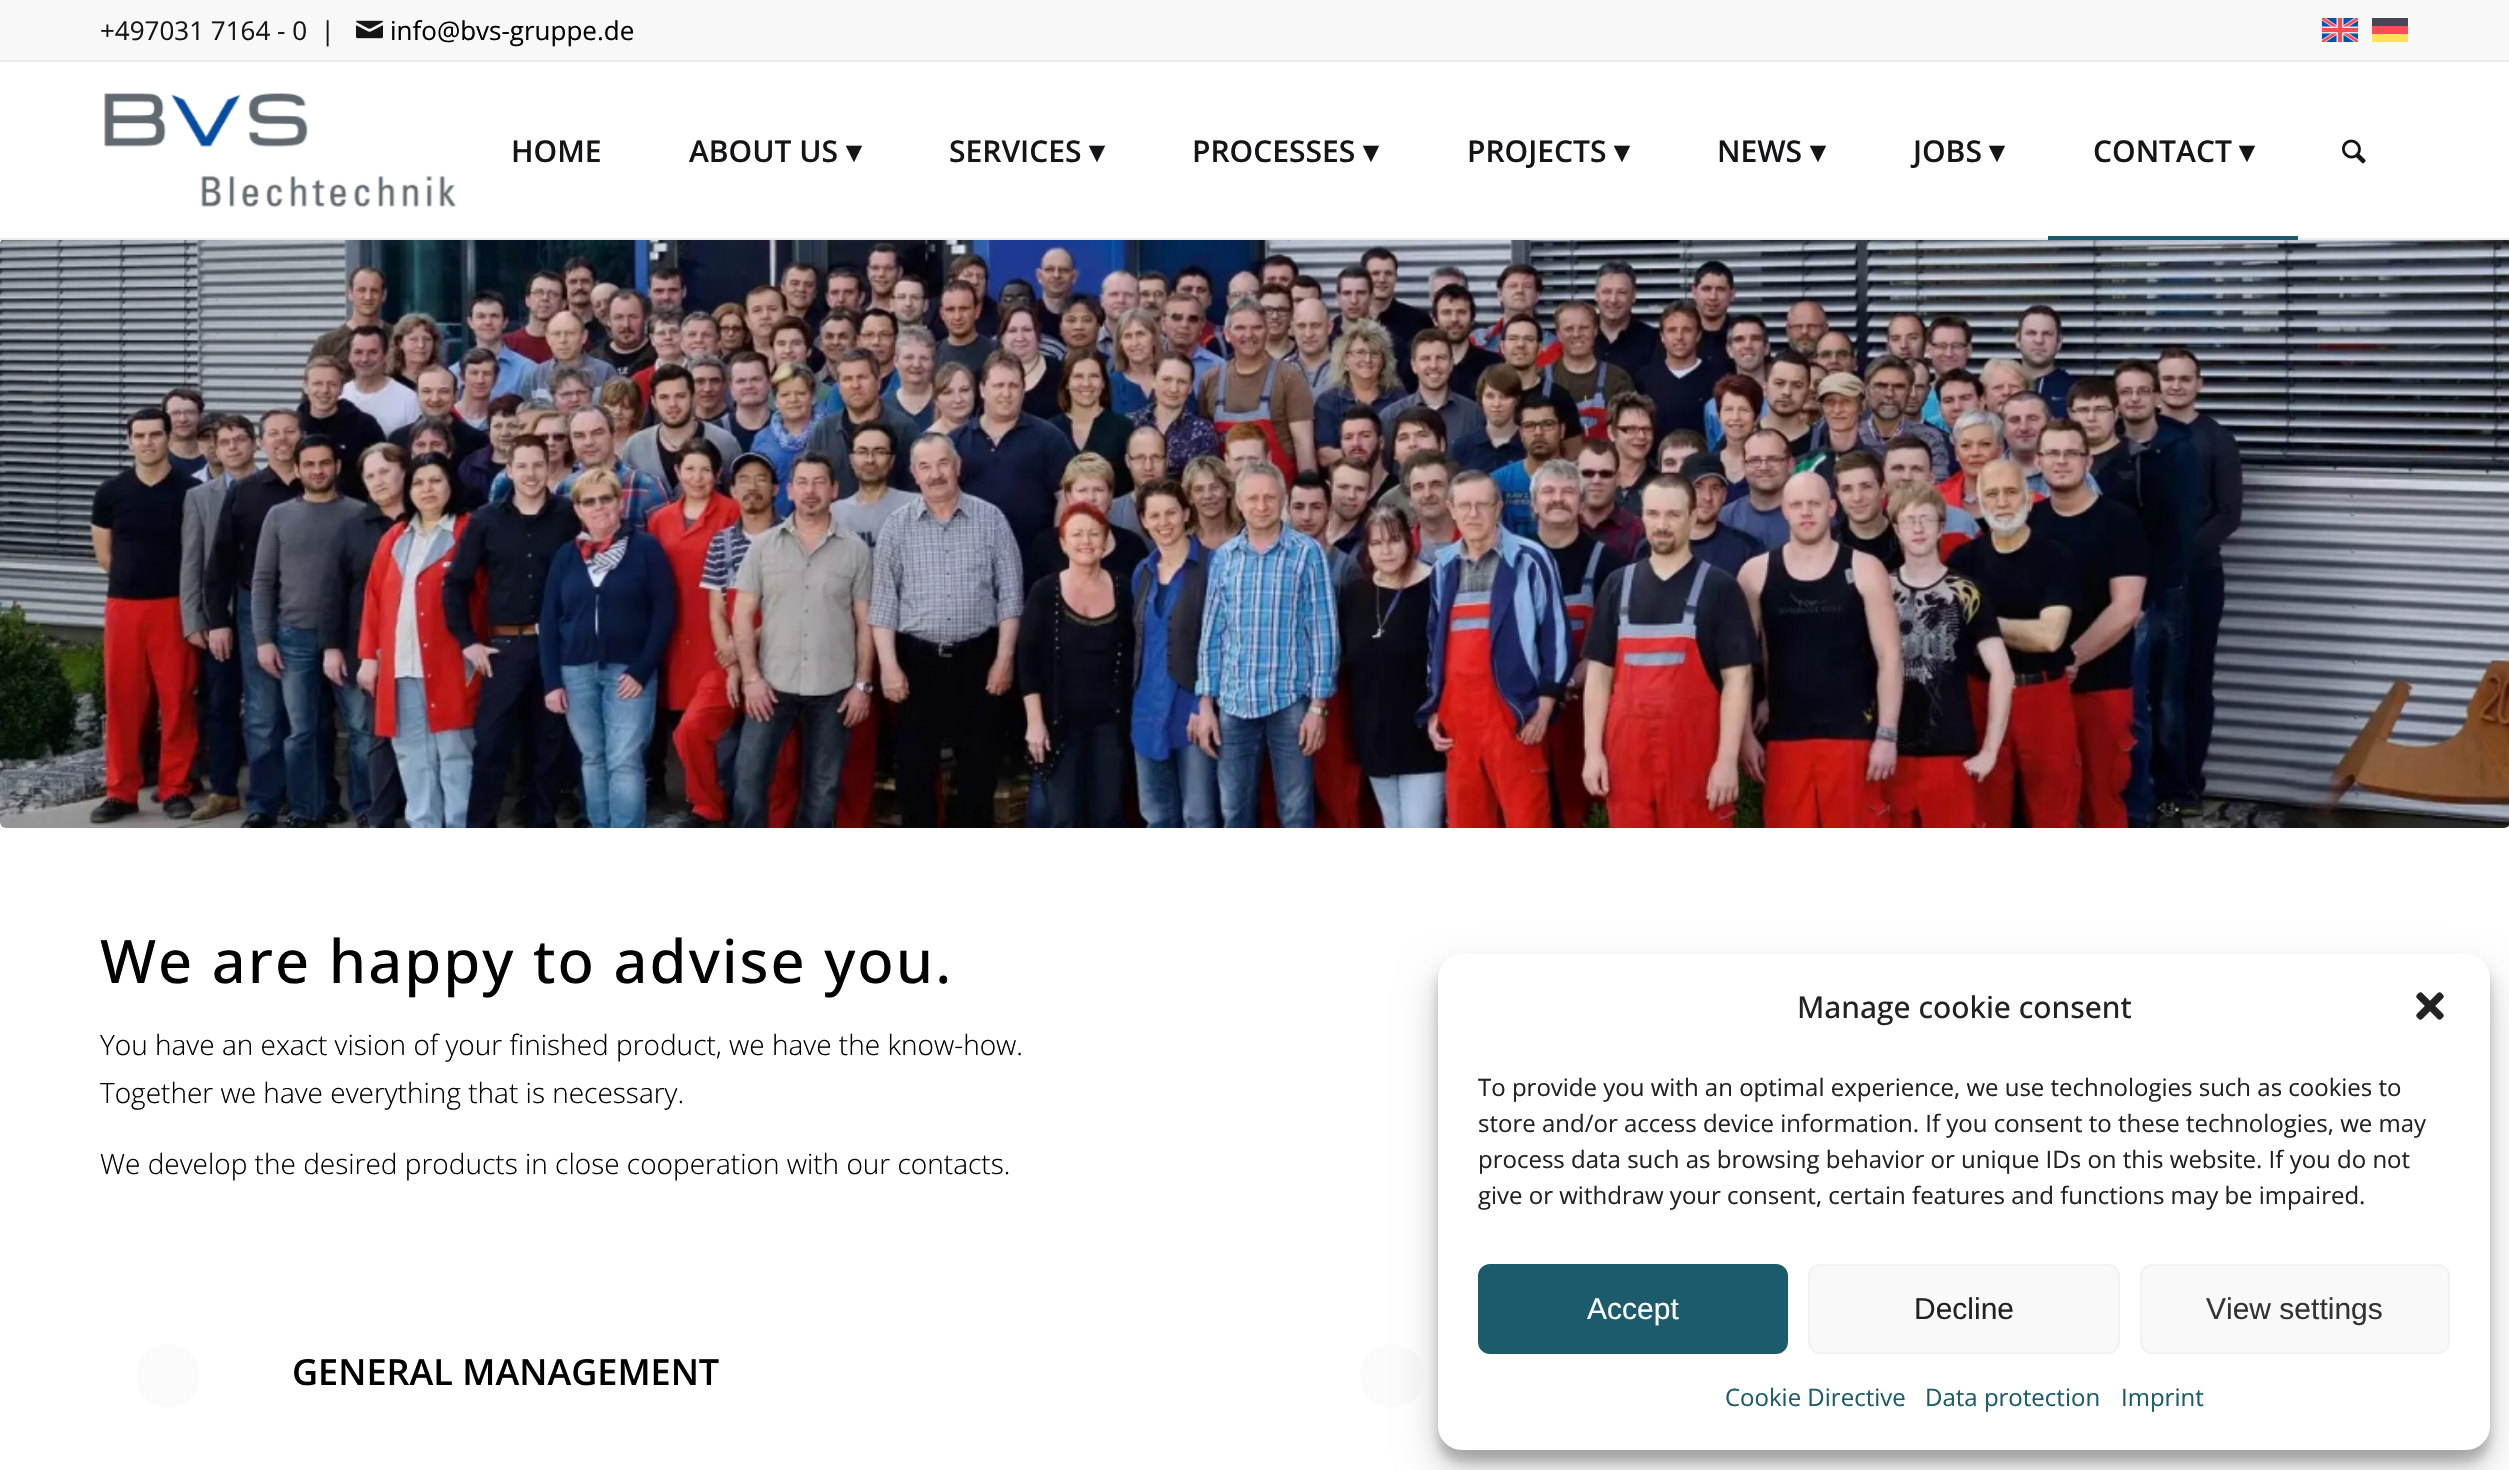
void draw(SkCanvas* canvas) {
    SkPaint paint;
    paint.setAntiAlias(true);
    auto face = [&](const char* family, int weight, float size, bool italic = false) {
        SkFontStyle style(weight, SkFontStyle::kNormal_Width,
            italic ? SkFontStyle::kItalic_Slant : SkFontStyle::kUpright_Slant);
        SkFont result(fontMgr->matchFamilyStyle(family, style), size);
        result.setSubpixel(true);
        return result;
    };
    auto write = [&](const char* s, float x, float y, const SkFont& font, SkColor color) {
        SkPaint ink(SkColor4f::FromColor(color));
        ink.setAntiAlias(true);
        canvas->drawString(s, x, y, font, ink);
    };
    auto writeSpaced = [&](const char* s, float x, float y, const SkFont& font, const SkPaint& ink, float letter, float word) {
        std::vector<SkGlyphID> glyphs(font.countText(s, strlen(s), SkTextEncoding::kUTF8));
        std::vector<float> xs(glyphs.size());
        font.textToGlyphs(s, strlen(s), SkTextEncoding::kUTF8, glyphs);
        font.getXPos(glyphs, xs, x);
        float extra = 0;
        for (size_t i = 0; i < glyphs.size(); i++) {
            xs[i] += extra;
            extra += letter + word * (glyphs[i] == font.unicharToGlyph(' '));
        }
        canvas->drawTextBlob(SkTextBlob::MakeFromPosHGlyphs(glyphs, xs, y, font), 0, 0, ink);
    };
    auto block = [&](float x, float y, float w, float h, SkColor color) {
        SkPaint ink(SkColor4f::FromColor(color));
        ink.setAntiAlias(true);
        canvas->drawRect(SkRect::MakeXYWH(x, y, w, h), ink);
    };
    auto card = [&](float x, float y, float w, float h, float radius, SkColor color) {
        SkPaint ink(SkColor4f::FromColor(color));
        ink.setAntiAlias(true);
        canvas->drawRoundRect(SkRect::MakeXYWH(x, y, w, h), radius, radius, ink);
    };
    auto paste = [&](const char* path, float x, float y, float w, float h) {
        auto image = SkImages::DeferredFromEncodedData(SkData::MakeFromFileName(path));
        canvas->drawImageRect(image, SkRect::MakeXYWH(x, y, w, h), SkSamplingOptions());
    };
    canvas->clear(SK_ColorWHITE);
    block(0, 0, 2509, 60, SkColorSetRGB(248, 248, 248));
    block(0, 60, 2509, 2, SkColorSetRGB(235, 235, 235));
    auto kFont1 = face("Open Sans", 400, 26);
    write("+497031 7164 - 0  |", 100, 40, kFont1, SkColorSetRGB(21, 20, 22));
    paste("pic1.png", 356, 20, 27, 19);
    write("info@bvs-gruppe.de", 390, 40, kFont1, SK_ColorBLACK);
    paste("pic2.png", 2322, 18, 36, 24);
    block(2372, 26, 36, 8, SkColorSetRGB(255, 75, 85));
    block(2372, 34, 36, 8, SkColorSetRGB(255, 225, 90));
    block(2372, 18, 36, 8, SkColorSetRGB(70, 70, 85));
    block(0, 238, 2509, 2, SkColorSetRGB(235, 235, 235));
    paste("pic3.png", 104, 93, 353, 115);
    auto kFont2 = face("Open Sans", 600, 30);
    write("HOME", 511, 162, kFont2, SkColorSetRGB(21, 20, 22));
    write("ABOUT US", 689, 162, kFont2, SkColorSetRGB(21, 20, 22));
    auto kFont3 = face("DejaVu Sans", 700, 30);
    write("▾", 846, 162, kFont3, SkColorSetRGB(21, 20, 22));
    write("SERVICES", 949, 162, kFont2, SkColorSetRGB(21, 20, 22));
    write("▾", 1089, 162, kFont3, SkColorSetRGB(21, 20, 22));
    write("PROCESSES", 1192, 162, kFont2, SkColorSetRGB(21, 20, 22));
    write("▾", 1363, 162, kFont3, SkColorSetRGB(21, 20, 22));
    write("PROJECTS", 1467, 162, kFont2, SkColorSetRGB(21, 20, 22));
    write("▾", 1614, 162, kFont3, SkColorSetRGB(21, 20, 22));
    write("NEWS", 1717, 162, kFont2, SkColorSetRGB(21, 20, 22));
    write("▾", 1810, 162, kFont3, SkColorSetRGB(21, 20, 22));
    write("JOBS", 1913, 162, kFont2, SkColorSetRGB(21, 20, 22));
    write("▾", 1989, 162, kFont3, SkColorSetRGB(21, 20, 22));
    write("CONTACT", 2093, 162, kFont2, SkColorSetRGB(21, 20, 22));
    write("▾", 2239, 162, kFont3, SkColorSetRGB(21, 20, 22));
    block(2048, 236, 250, 4, SkColorSetRGB(27, 90, 108));
    paste("pic4.png", 2342, 139, 24, 25);
    paste("pic5.png", 0, 240, 2509, 588);
    auto kFont4 = face("Open Sans", 500, 60);
    paint.setColor(SK_ColorBLACK);
    writeSpaced("We are happy to advise you.", 100, 983, kFont4, paint, 2, 0);
    auto kFont5 = face("Open Sans", 300, 28);
    write("You have an exact vision of your finished product, we have the know-how.", 100, 1055, kFont5, SK_ColorBLACK);
    write("Together we have everything that is necessary.", 100, 1103, kFont5, SK_ColorBLACK);
    write("We develop the desired products in close cooperation with our contacts.", 100, 1174, kFont5, SK_ColorBLACK);
    paint.setColor(SkColorSetRGB(251, 251, 251));
    canvas->drawCircle(168, 1376, 32, paint);
    auto kFont6 = face("Open Sans", 600, 36);
    write("GENERAL MANAGEMENT", 292, 1385, kFont6, SK_ColorBLACK);
    canvas->drawCircle(1392, 1376, 32, paint);
    paint.setColor(SkColorSetARGB(59, 0, 0, 0));
    paint.setMaskFilter(SkMaskFilter::MakeBlur(kNormal_SkBlurStyle, 6));
    canvas->drawRoundRect(SkRect::MakeXYWH(1438, 966, 1052, 496), 24, 24, paint);
    paint.setMaskFilter(nullptr);
    paint.setColor(SkColorSetARGB(48, 0, 0, 0));
    paint.setMaskFilter(SkMaskFilter::MakeBlur(kNormal_SkBlurStyle, 20));
    canvas->drawRoundRect(SkRect::MakeXYWH(1438, 974, 1052, 496), 24, 24, paint);
    paint.setMaskFilter(nullptr);
    card(1438, 954, 1052, 496, 24, SK_ColorWHITE);
    auto kFont7 = face("Open Sans", 500, 30);
    write("Manage cookie consent", 1797, 1018, kFont7, SkColorSetRGB(34, 34, 34));
    paste("pic6.png", 2416, 992, 28, 28);
    auto kFont8 = face("Open Sans", 400, 24);
    write("To provide you with an optimal experience, we use technologies such as cookies to", 1478, 1096, kFont8, SkColorSetRGB(34, 34, 34));
    write("store and/or access device information. If you consent to these technologies, we may", 1478, 1132, kFont8, SkColorSetRGB(34, 34, 34));
    write("process data such as browsing behavior or unique IDs on this website. If you do not", 1478, 1168, kFont8, SkColorSetRGB(34, 34, 34));
    write("give or withdraw your consent, certain features and functions may be impaired.", 1478, 1204, kFont8, SkColorSetRGB(34, 34, 34));
    paint.setColor(SkColorSetRGB(27, 91, 108));
    canvas->drawRoundRect(SkRect::MakeXYWH(1479, 1265, 308, 88), 11, 11, paint);
    paint.setStyle(SkPaint::kStroke_Style);
    paint.setStrokeWidth(2);
    canvas->drawRoundRect(SkRect::MakeXYWH(1479, 1265, 308, 88), 11, 11, paint);
    auto kFont9 = face("Liberation Sans", 400, 30);
    write("Accept", 1587, 1319, kFont9, SK_ColorWHITE);
    paint.setStyle(SkPaint::kFill_Style);
    paint.setColor(SkColorSetRGB(249, 249, 249));
    canvas->drawRoundRect(SkRect::MakeXYWH(1809, 1265, 310, 88), 11, 11, paint);
    paint.setStyle(SkPaint::kStroke_Style);
    paint.setColor(SkColorSetRGB(242, 242, 242));
    canvas->drawRoundRect(SkRect::MakeXYWH(1809, 1265, 310, 88), 11, 11, paint);
    write("Decline", 1914, 1319, kFont9, SkColorSetRGB(34, 34, 34));
    paint.setStyle(SkPaint::kFill_Style);
    paint.setColor(SkColorSetRGB(249, 249, 249));
    canvas->drawRoundRect(SkRect::MakeXYWH(2141, 1265, 308, 88), 11, 11, paint);
    paint.setStyle(SkPaint::kStroke_Style);
    paint.setColor(SkColorSetRGB(242, 242, 242));
    canvas->drawRoundRect(SkRect::MakeXYWH(2141, 1265, 308, 88), 11, 11, paint);
    write("View settings", 2206, 1319, kFont9, SkColorSetRGB(51, 51, 51));
    write("Cookie Directive", 1725, 1406, kFont8, SkColorSetRGB(27, 91, 108));
    write("Data protection", 1925, 1406, kFont8, SkColorSetRGB(27, 91, 108));
    write("Imprint", 2121, 1406, kFont8, SkColorSetRGB(27, 91, 108));
}
